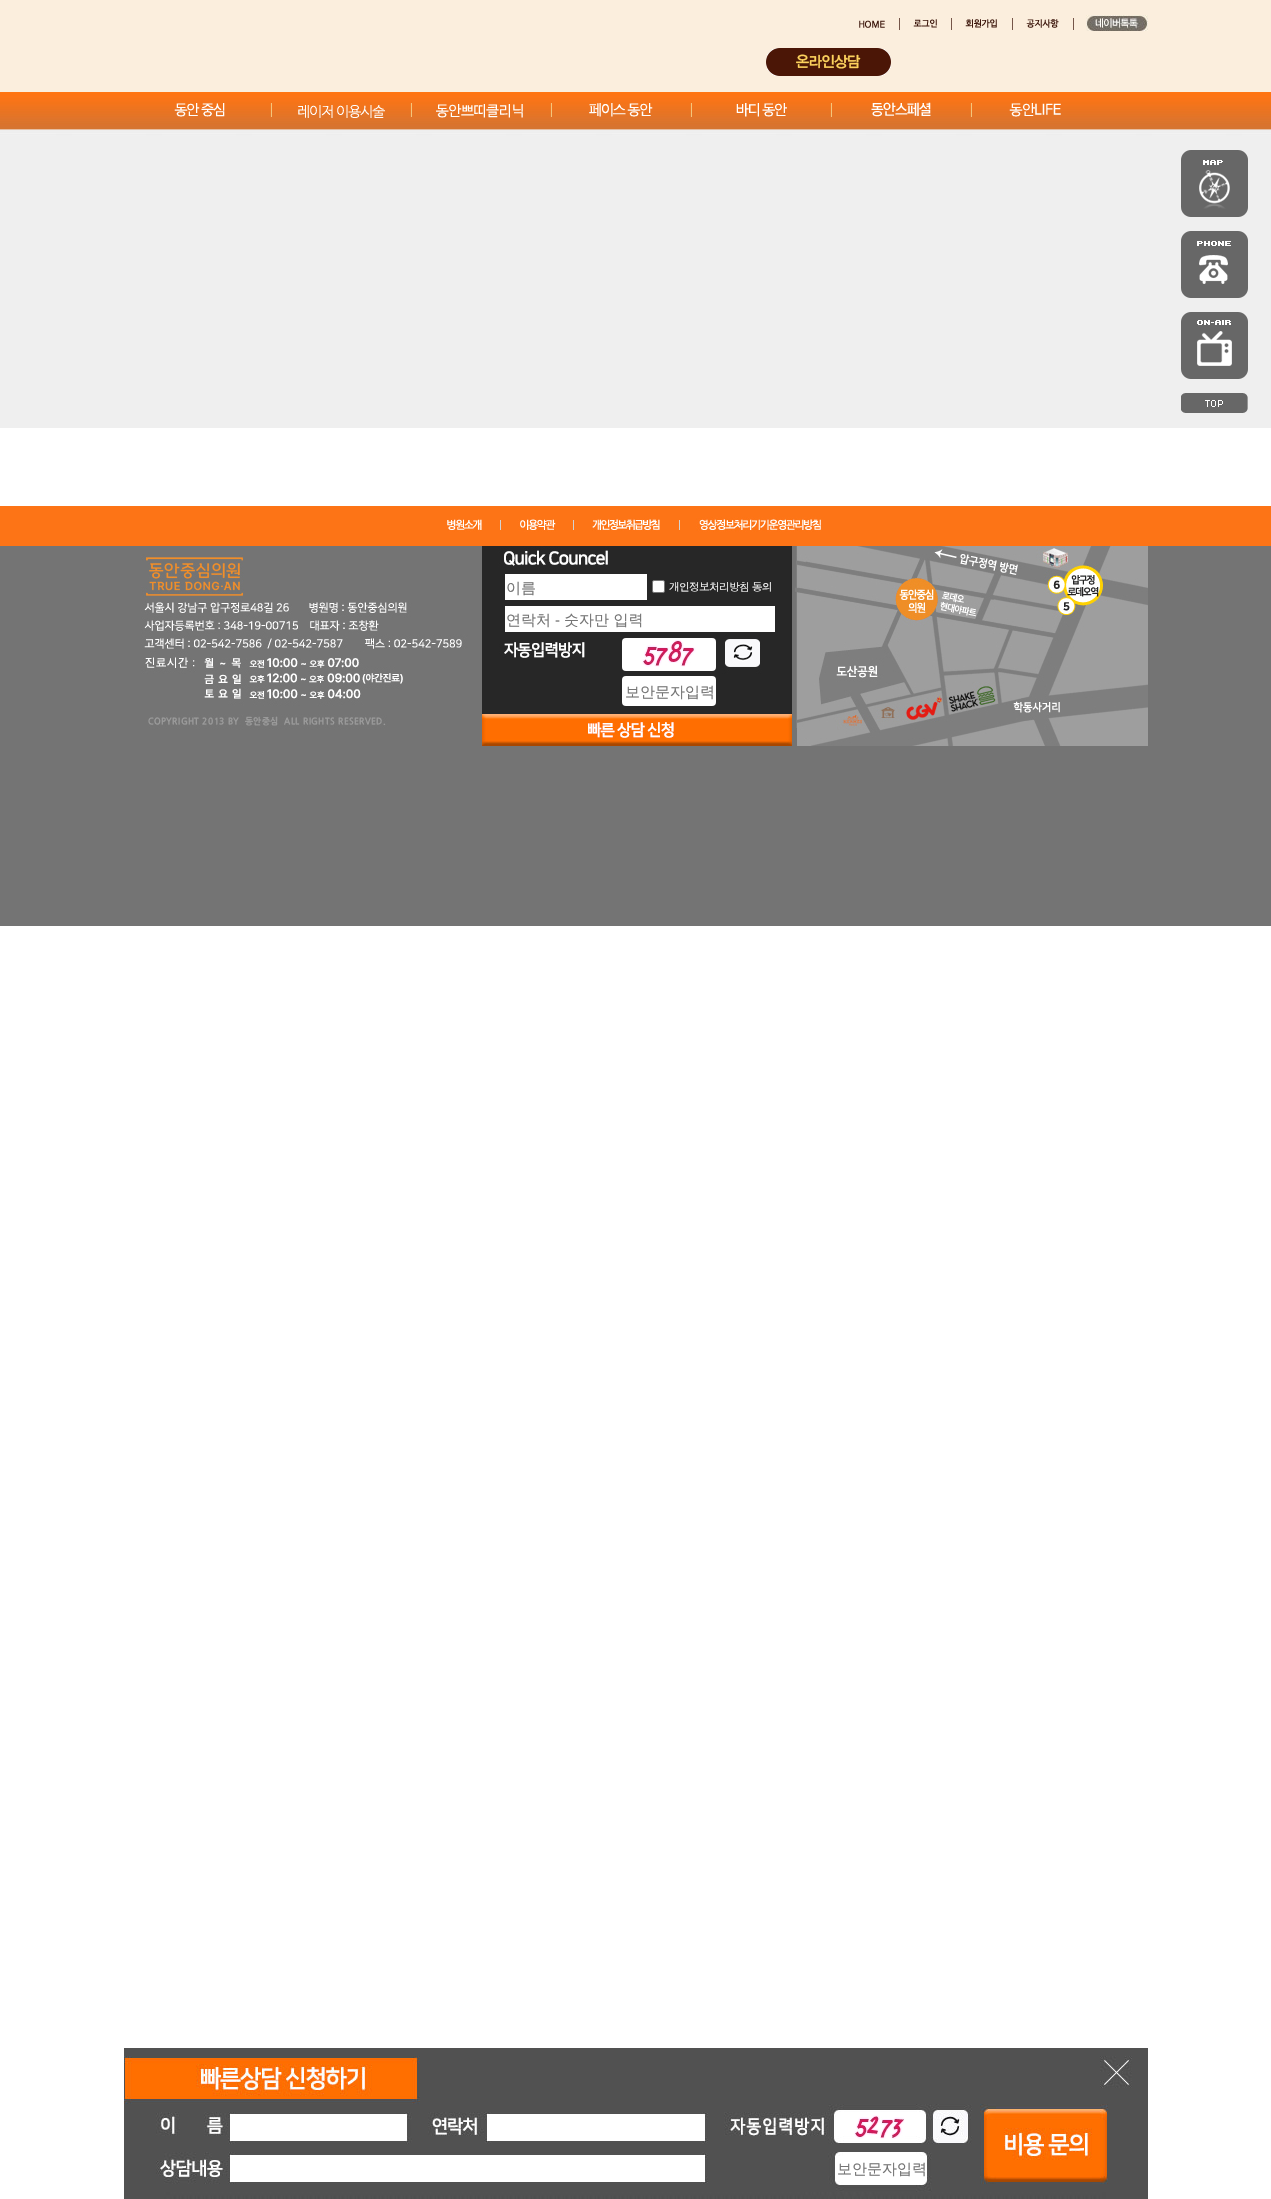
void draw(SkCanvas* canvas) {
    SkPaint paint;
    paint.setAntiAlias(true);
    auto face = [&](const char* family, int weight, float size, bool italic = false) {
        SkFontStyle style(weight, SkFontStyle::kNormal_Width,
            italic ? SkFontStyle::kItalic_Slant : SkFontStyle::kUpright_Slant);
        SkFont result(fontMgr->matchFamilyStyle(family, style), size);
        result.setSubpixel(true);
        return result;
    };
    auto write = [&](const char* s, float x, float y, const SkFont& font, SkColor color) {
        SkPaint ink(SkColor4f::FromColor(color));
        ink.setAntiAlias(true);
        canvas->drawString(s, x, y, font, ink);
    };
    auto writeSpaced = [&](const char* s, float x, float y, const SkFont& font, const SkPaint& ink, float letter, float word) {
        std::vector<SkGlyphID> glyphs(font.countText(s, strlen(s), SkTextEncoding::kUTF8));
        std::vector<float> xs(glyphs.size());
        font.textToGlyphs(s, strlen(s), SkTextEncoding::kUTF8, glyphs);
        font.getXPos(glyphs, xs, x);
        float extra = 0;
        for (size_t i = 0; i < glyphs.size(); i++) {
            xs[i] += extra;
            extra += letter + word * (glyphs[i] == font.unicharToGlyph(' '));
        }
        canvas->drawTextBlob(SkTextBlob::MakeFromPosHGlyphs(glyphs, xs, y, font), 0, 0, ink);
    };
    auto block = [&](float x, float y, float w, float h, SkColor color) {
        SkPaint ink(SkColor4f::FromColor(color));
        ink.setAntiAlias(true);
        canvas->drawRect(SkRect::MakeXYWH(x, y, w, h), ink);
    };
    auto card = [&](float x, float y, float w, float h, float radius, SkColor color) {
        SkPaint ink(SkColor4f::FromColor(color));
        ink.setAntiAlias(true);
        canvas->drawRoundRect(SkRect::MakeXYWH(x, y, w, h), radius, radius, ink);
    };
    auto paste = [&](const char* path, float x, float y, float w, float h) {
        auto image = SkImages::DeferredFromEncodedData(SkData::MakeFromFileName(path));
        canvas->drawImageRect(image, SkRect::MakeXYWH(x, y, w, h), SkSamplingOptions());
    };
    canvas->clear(SK_ColorWHITE);
    paste("pic1.png", 0, 0, 1271, 428);
    paste("pic2.png", 859, 20, 26, 8);
    block(899, 18, 1, 12, SkColorSetRGB(117, 86, 73));
    paste("pic3.png", 913, 19, 24, 9);
    block(951, 18, 1, 12, SkColorSetRGB(117, 86, 73));
    paste("pic4.png", 965, 19, 32, 9);
    block(1012, 18, 1, 12, SkColorSetRGB(117, 86, 73));
    paste("pic5.png", 1026, 19, 33, 9);
    block(1073, 18, 1, 12, SkColorSetRGB(117, 86, 73));
    paste("pic6.png", 1086, 15, 62, 16);
    paste("pic7.png", 766, 48, 125, 28);
    paste("pic8.png", 174, 103, 51, 14);
    paste("pic9.png", 270, 103, 2, 14);
    paste("pic10.png", 298, 105, 87, 13);
    paste("pic9.png", 410, 103, 2, 14);
    paste("pic11.png", 436, 104, 87, 14);
    paste("pic9.png", 550, 103, 2, 14);
    paste("pic12.png", 589, 103, 64, 14);
    paste("pic9.png", 690, 103, 2, 14);
    paste("pic13.png", 736, 103, 51, 14);
    paste("pic9.png", 830, 103, 2, 14);
    paste("pic14.png", 871, 102, 60, 15);
    paste("pic9.png", 970, 103, 2, 14);
    paste("pic15.png", 1009, 103, 52, 14);
    paste("pic16.png", 1181, 150, 67, 67);
    paste("pic17.png", 1181, 231, 67, 67);
    paste("pic18.png", 1181, 312, 67, 67);
    paste("pic19.png", 1181, 393, 67, 20);
    block(0, 506, 1271, 40, SkColorSetRGB(253, 116, 22));
    paste("pic20.png", 447, 519, 35, 13);
    block(500, 520, 1, 10, SkColorSetRGB(210, 210, 210));
    paste("pic21.png", 518, 519, 38, 13);
    block(573, 520, 1, 10, SkColorSetRGB(210, 210, 210));
    paste("pic22.png", 592, 518, 68, 13);
    block(679, 520, 1, 10, SkColorSetRGB(210, 210, 210));
    paste("pic23.png", 696, 517, 125, 15);
    block(0, 546, 1271, 380, SkColorSetRGB(116, 116, 116));
    paste("pic24.png", 141, 546, 1007, 200);
    paste("pic25.png", 482, 546, 310, 200);
    block(505, 574, 142, 26, SK_ColorWHITE);
    auto kFont1 = face("WenQuanYi Zen Hei", 500, 15);
    write("이름", 506, 593, kFont1, SkColorSetRGB(117, 117, 117));
    paint.setColor(SK_ColorWHITE);
    canvas->drawRoundRect(SkRect::MakeXYWH(652.5f, 580.5f, 12, 12), 1.5f, 1.5f, paint);
    paint.setStyle(SkPaint::kStroke_Style);
    paint.setStrokeWidth(1);
    paint.setColor(SkColorSetRGB(118, 118, 118));
    canvas->drawRoundRect(SkRect::MakeXYWH(652.5f, 580.5f, 12, 12), 1.5f, 1.5f, paint);
    auto kFont2 = face("Dotum", 400, 11);
    paint.setStyle(SkPaint::kFill_Style);
    paint.setColor(SK_ColorWHITE);
    writeSpaced("개인정보처리방침 동의", 669, 591, kFont2, paint, -1, 0);
    block(505, 606, 270, 26, SK_ColorWHITE);
    write("연락처", 506, 625, kFont1, SkColorSetRGB(117, 117, 117));
    auto kFont3 = face("Liberation Sans", 400, 15);
    write("-", 555, 625, kFont3, SkColorSetRGB(117, 117, 117));
    write("숫자만 입력", 564, 625, kFont1, SkColorSetRGB(117, 117, 117));
    card(622, 638, 94, 33, 4, SK_ColorWHITE);
    paste("pic26.png", 642, 640, 54, 27);
    card(622, 676, 94, 30, 4, SK_ColorWHITE);
    write("보안문자입력", 625, 697, kFont1, SkColorSetRGB(117, 117, 117));
    paste("pic27.png", 124, 2048, 1024, 151);
    block(230, 2114, 176, 27, SK_ColorWHITE);
    block(487, 2114, 217, 27, SK_ColorWHITE);
    block(230, 2155, 475, 27, SK_ColorWHITE);
    paste("pic28.png", 854, 2115, 51, 24);
    block(837, 2156, 89, 25, SK_ColorWHITE);
    write("보안문자입력", 837, 2174, kFont1, SkColorSetRGB(117, 117, 117));
}
